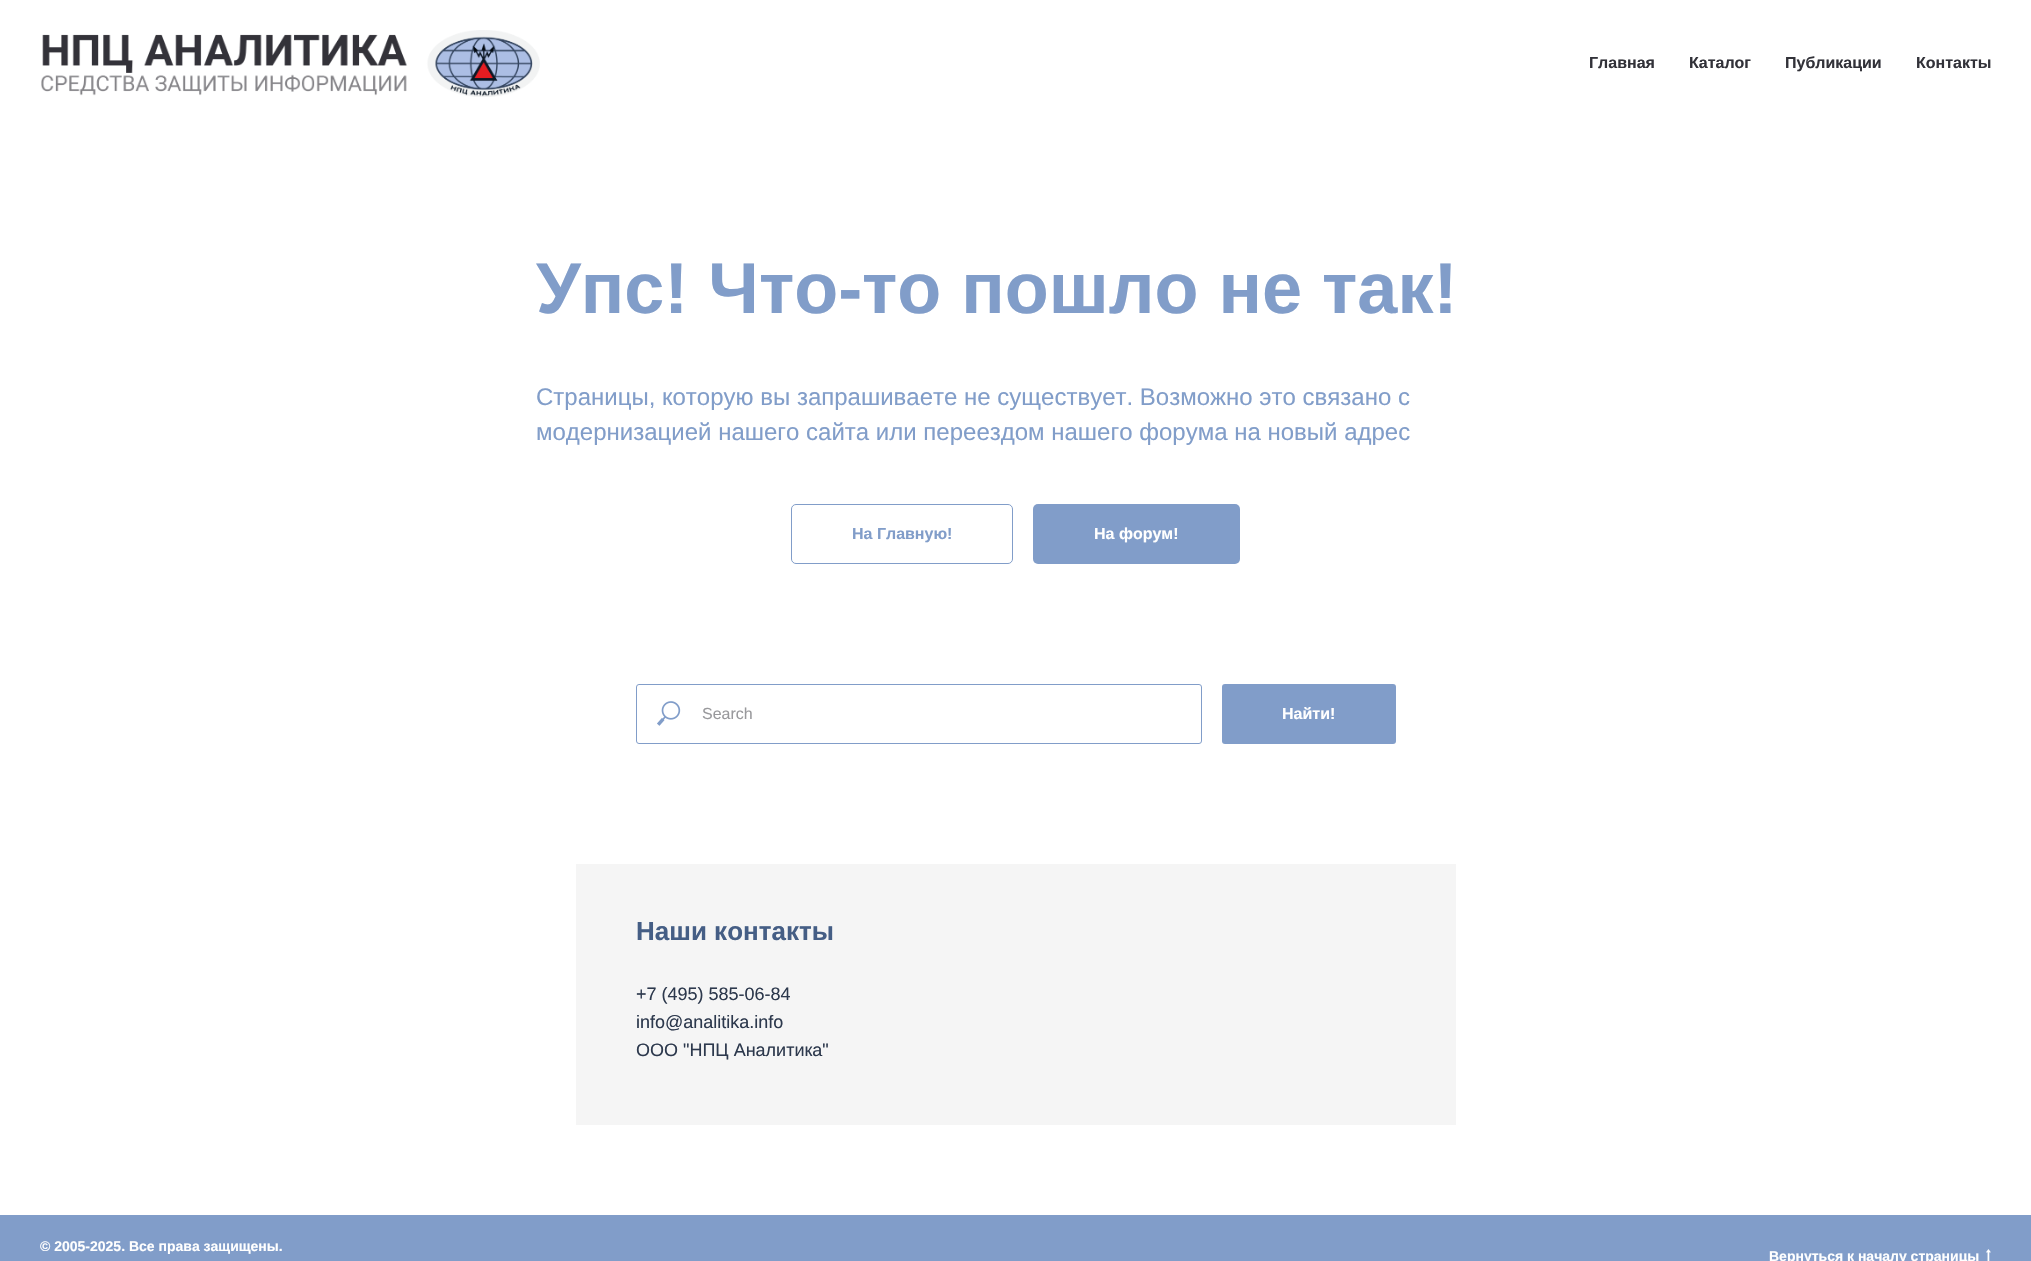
void draw(SkCanvas* canvas) {
    SkPaint paint;
    paint.setAntiAlias(true);
    auto face = [&](const char* family, int weight, float size, bool italic = false) {
        SkFontStyle style(weight, SkFontStyle::kNormal_Width,
            italic ? SkFontStyle::kItalic_Slant : SkFontStyle::kUpright_Slant);
        SkFont result(fontMgr->matchFamilyStyle(family, style), size);
        result.setSubpixel(true);
        return result;
    };
    auto write = [&](const char* s, float x, float y, const SkFont& font, SkColor color) {
        SkPaint ink(SkColor4f::FromColor(color));
        ink.setAntiAlias(true);
        canvas->drawString(s, x, y, font, ink);
    };
    auto block = [&](float x, float y, float w, float h, SkColor color) {
        SkPaint ink(SkColor4f::FromColor(color));
        ink.setAntiAlias(true);
        canvas->drawRect(SkRect::MakeXYWH(x, y, w, h), ink);
    };
    auto card = [&](float x, float y, float w, float h, float radius, SkColor color) {
        SkPaint ink(SkColor4f::FromColor(color));
        ink.setAntiAlias(true);
        canvas->drawRoundRect(SkRect::MakeXYWH(x, y, w, h), radius, radius, ink);
    };
    auto paste = [&](const char* path, float x, float y, float w, float h) {
        auto image = SkImages::DeferredFromEncodedData(SkData::MakeFromFileName(path));
        canvas->drawImageRect(image, SkRect::MakeXYWH(x, y, w, h), SkSamplingOptions());
    };
    canvas->clear(SK_ColorWHITE);
    paste("pic1.png", 41, 30, 499, 67);
    auto kFont1 = face("Liberation Sans", 700, 16);
    write("Главная", 1589, 68, kFont1, SkColorSetRGB(50, 50, 57));
    write("Каталог", 1689, 68, kFont1, SkColorSetRGB(50, 50, 57));
    write("Публикации", 1785, 68, kFont1, SkColorSetRGB(50, 50, 57));
    write("Контакты", 1916, 68, kFont1, SkColorSetRGB(50, 50, 57));
    auto kFont2 = face("Liberation Sans", 700, 72);
    write("Упс! Что-то пошло не так!", 536, 313, kFont2, SkColorSetRGB(129, 157, 201));
    auto kFont3 = face("Liberation Sans", 400, 24);
    write("Страницы, которую вы запрашиваете не существует. Возможно это связано с", 536, 405, kFont3, SkColorSetRGB(129, 157, 201));
    write("модернизацией нашего сайта или переездом нашего форума на новый адрес", 536, 440, kFont3, SkColorSetRGB(129, 157, 201));
    paint.setStyle(SkPaint::kStroke_Style);
    paint.setStrokeWidth(1);
    paint.setColor(SkColorSetRGB(129, 157, 201));
    canvas->drawRoundRect(SkRect::MakeXYWH(791.5f, 504.5f, 221, 59), 4.5f, 4.5f, paint);
    write("На Главную!", 852, 539, kFont1, SkColorSetRGB(129, 157, 201));
    card(1033, 504, 207, 60, 5, SkColorSetRGB(129, 157, 201));
    write("На форум!", 1094, 539, kFont1, SK_ColorWHITE);
    canvas->drawRoundRect(SkRect::MakeXYWH(636.5f, 684.5f, 565, 59), 2.5f, 2.5f, paint);
    paste("pic2.png", 657, 701, 24, 25);
    auto kFont4 = face("Liberation Sans", 400, 16);
    write("Search", 702, 719, kFont4, SkColorSetRGB(153, 153, 156));
    card(1222, 684, 174, 60, 3, SkColorSetRGB(129, 157, 201));
    write("Найти!", 1282, 719, kFont1, SK_ColorWHITE);
    block(576, 864, 880, 261, SkColorSetRGB(245, 245, 245));
    auto kFont5 = face("Liberation Sans", 700, 26);
    write("Наши контакты", 636, 940, kFont5, SkColorSetRGB(69, 94, 133));
    auto kFont6 = face("Liberation Sans", 400, 18);
    write("+7 (495) 585-06-84", 636, 1000, kFont6, SkColorSetRGB(45, 57, 77));
    write("info@analitika.info", 636, 1028, kFont6, SkColorSetRGB(45, 57, 77));
    write("ООО \"НПЦ Аналитика\"", 636, 1056, kFont6, SkColorSetRGB(45, 57, 77));
    block(0, 1215, 2031, 46, SkColorSetRGB(129, 157, 201));
    auto kFont7 = face("Liberation Sans", 700, 14);
    write("© 2005-2025. Все права защищены.", 40, 1251, kFont7, SK_ColorWHITE);
    write("Вернуться к началу страницы", 1769, 1261, kFont7, SK_ColorWHITE);
    paste("pic3.png", 1986, 1249, 5, 12);
}
